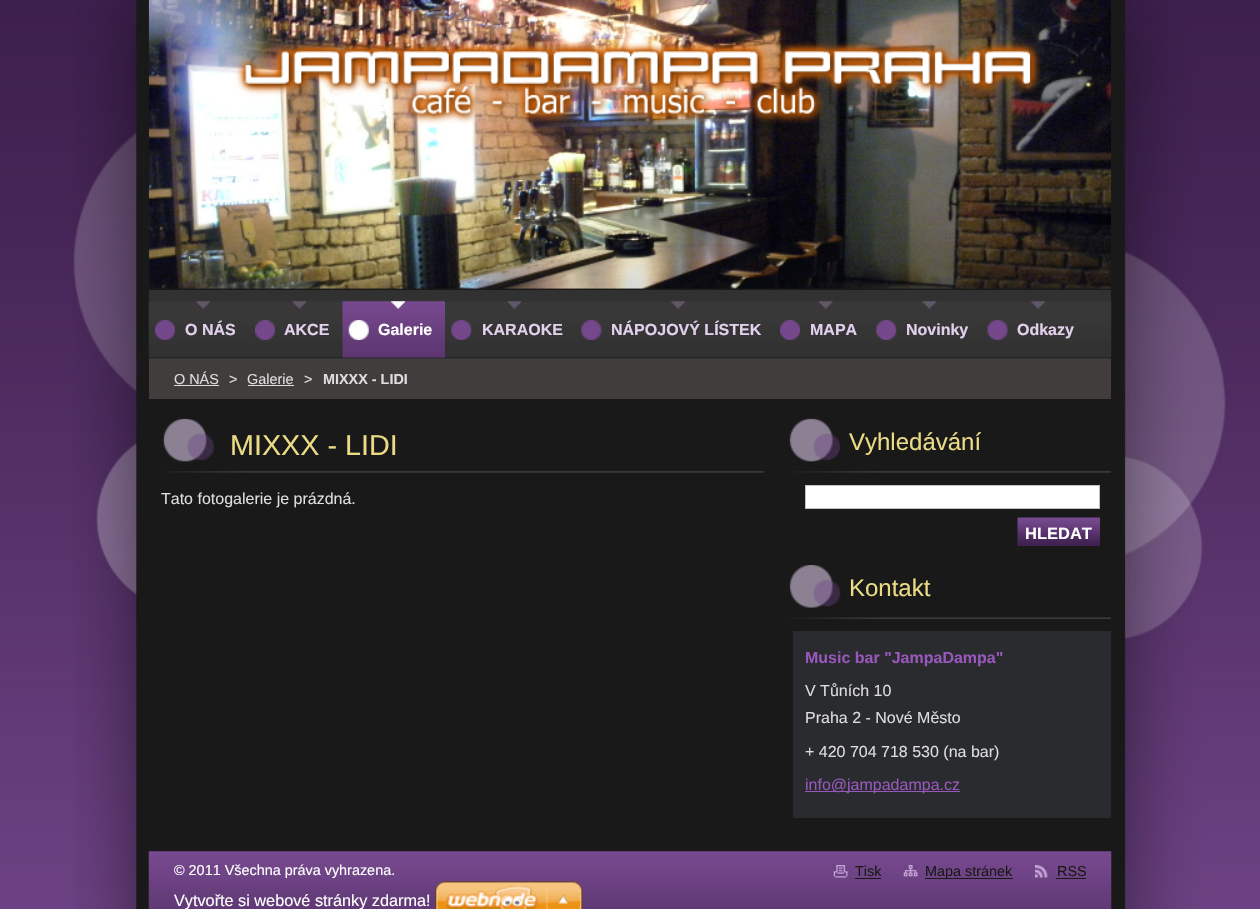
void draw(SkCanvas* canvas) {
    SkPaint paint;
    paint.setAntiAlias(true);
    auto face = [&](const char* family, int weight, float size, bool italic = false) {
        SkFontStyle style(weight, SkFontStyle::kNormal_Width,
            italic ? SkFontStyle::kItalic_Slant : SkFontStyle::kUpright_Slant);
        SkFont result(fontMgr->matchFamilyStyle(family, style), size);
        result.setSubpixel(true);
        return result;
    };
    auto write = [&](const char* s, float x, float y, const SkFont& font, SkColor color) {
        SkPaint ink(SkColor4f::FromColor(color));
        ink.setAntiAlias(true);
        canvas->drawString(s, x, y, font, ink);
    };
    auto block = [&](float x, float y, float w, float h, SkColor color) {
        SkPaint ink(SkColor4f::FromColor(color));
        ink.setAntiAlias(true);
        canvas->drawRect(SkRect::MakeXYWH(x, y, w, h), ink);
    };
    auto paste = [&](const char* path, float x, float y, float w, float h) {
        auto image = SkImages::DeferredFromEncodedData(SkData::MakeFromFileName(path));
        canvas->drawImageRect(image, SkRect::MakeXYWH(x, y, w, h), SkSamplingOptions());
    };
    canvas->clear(SK_ColorWHITE);
    paste("pic1.png", 0, 0, 1260, 909);
    paste("pic2.png", 73, 0, 1153, 909);
    block(149, 290, 962, 10, SkColorSetRGB(49, 49, 49));
    paste("pic3.png", 148, 0, 964, 289);
    paste("pic4.png", 148, 301, 964, 57);
    block(149, 300, 962, 1, SkColorSetRGB(52, 52, 52));
    block(149, 358, 962, 1, SkColorSetRGB(50, 53, 55));
    paste("pic5.png", 155, 320, 20, 20);
    paste("pic6.png", 196, 301, 14, 8);
    auto kFont1 = face("Liberation Sans", 700, 16);
    write("O NÁS", 185, 335, kFont1, SkColorSetRGB(226, 208, 236));
    paste("pic5.png", 255, 320, 20, 20);
    paste("pic7.png", 292, 301, 15, 8);
    write("AKCE", 284, 335, kFont1, SkColorSetRGB(226, 208, 236));
    paste("pic8.png", 342, 301, 103, 57);
    paste("pic9.png", 348, 320, 21, 20);
    paste("pic10.png", 391, 301, 14, 8);
    write("Galerie", 378, 335, kFont1, SK_ColorWHITE);
    paste("pic11.png", 451, 320, 21, 20);
    paste("pic12.png", 507, 301, 15, 8);
    write("KARAOKE", 482, 335, kFont1, SkColorSetRGB(226, 208, 236));
    paste("pic11.png", 581, 320, 21, 20);
    paste("pic6.png", 671, 301, 14, 8);
    write("NÁPOJOVÝ LÍSTEK", 611, 335, kFont1, SkColorSetRGB(226, 208, 236));
    paste("pic13.png", 780, 320, 20, 20);
    paste("pic14.png", 818, 301, 15, 8);
    write("MAPA", 810, 335, kFont1, SkColorSetRGB(226, 208, 236));
    paste("pic11.png", 876, 320, 21, 20);
    paste("pic7.png", 922, 301, 15, 8);
    write("Novinky", 906, 335, kFont1, SkColorSetRGB(226, 208, 236));
    paste("pic15.png", 987, 320, 21, 20);
    paste("pic6.png", 1031, 301, 14, 8);
    write("Odkazy", 1017, 335, kFont1, SkColorSetRGB(226, 208, 236));
    block(149, 359, 962, 40, SkColorSetRGB(65, 61, 61));
    auto kFont2 = face("Liberation Sans", 400, 14.4f);
    write("O NÁS", 174, 384, kFont2, SkColorSetRGB(221, 221, 221));
    block(174, 385, 45, 1, SkColorSetRGB(221, 221, 221));
    write(">", 229, 384, kFont2, SkColorSetRGB(221, 221, 221));
    write("Galerie", 247, 384, kFont2, SkColorSetRGB(221, 221, 221));
    block(248, 385, 46, 1, SkColorSetRGB(221, 221, 221));
    write(">", 304, 384, kFont2, SkColorSetRGB(221, 221, 221));
    auto kFont3 = face("Liberation Sans", 700, 14.4f);
    write("MIXXX - LIDI", 323, 384, kFont3, SkColorSetRGB(221, 221, 221));
    paste("pic16.png", 163, 418, 601, 55);
    auto kFont4 = face("Liberation Sans", 400, 28.75f);
    write("MIXXX - LIDI", 230, 455, kFont4, SkColorSetRGB(235, 219, 132));
    auto kFont5 = face("Liberation Sans", 400, 16);
    write("Tato fotogalerie je prázdná.", 161, 504, kFont5, SkColorSetRGB(221, 221, 221));
    paste("pic17.png", 789, 418, 322, 55);
    auto kFont6 = face("Liberation Sans", 400, 24);
    write("Vyhledávání", 849, 450, kFont6, SkColorSetRGB(235, 219, 132));
    paint.setColor(SK_ColorWHITE);
    canvas->drawRect(SkRect::MakeXYWH(805.5f, 485.5f, 294, 23), paint);
    paint.setStyle(SkPaint::kStroke_Style);
    paint.setStrokeWidth(1);
    paint.setColor(SkColorSetRGB(193, 193, 193));
    canvas->drawRect(SkRect::MakeXYWH(805.5f, 485.5f, 294, 23), paint);
    paste("pic18.png", 1017, 517, 83, 29);
    auto kFont7 = face("Liberation Sans", 700, 16.5f);
    write("HLEDAT", 1025, 539, kFont7, SK_ColorWHITE);
    paste("pic19.png", 789, 565, 322, 54);
    write("Kontakt", 849, 596, kFont6, SkColorSetRGB(235, 219, 132));
    block(793, 631, 318, 187, SkColorSetRGB(41, 43, 46));
    write("Music bar \"JampaDampa\"", 805, 663, kFont1, SkColorSetRGB(152, 87, 187));
    write("V Tůních 10", 805, 696, kFont5, SkColorSetRGB(221, 221, 221));
    write("Praha 2 - Nové Město", 805, 723, kFont5, SkColorSetRGB(221, 221, 221));
    write("+ 420 704 718 530 (na bar)", 805, 757, kFont5, SkColorSetRGB(221, 221, 221));
    block(805, 791, 155, 1, SkColorSetRGB(152, 87, 187));
    write("info@jampadampa.cz", 805, 790, kFont5, SkColorSetRGB(152, 87, 187));
    paste("pic20.png", 148, 851, 964, 58);
    write("© 2011 Všechna práva vyhrazena.", 174, 875, kFont2, SK_ColorWHITE);
    paste("pic21.png", 833, 865, 15, 13);
    write("Tisk", 855, 876, kFont2, SkColorSetRGB(25, 25, 25));
    block(855, 878, 26, 1, SkColorSetRGB(25, 25, 25));
    paste("pic22.png", 903, 865, 15, 12);
    block(925, 878, 88, 1, SkColorSetRGB(25, 25, 25));
    write("Mapa stránek", 925, 876, kFont2, SkColorSetRGB(25, 25, 25));
    paste("pic23.png", 1035, 865, 13, 13);
    write("RSS", 1057, 876, kFont2, SkColorSetRGB(25, 25, 25));
    block(1056, 878, 30, 1, SkColorSetRGB(25, 25, 25));
    auto kFont8 = face("Liberation Sans", 400, 16.25f);
    write("Vytvořte si webové stránky zdarma!", 174, 906, kFont8, SK_ColorWHITE);
    paste("pic24.png", 435, 881, 148, 28);
}
